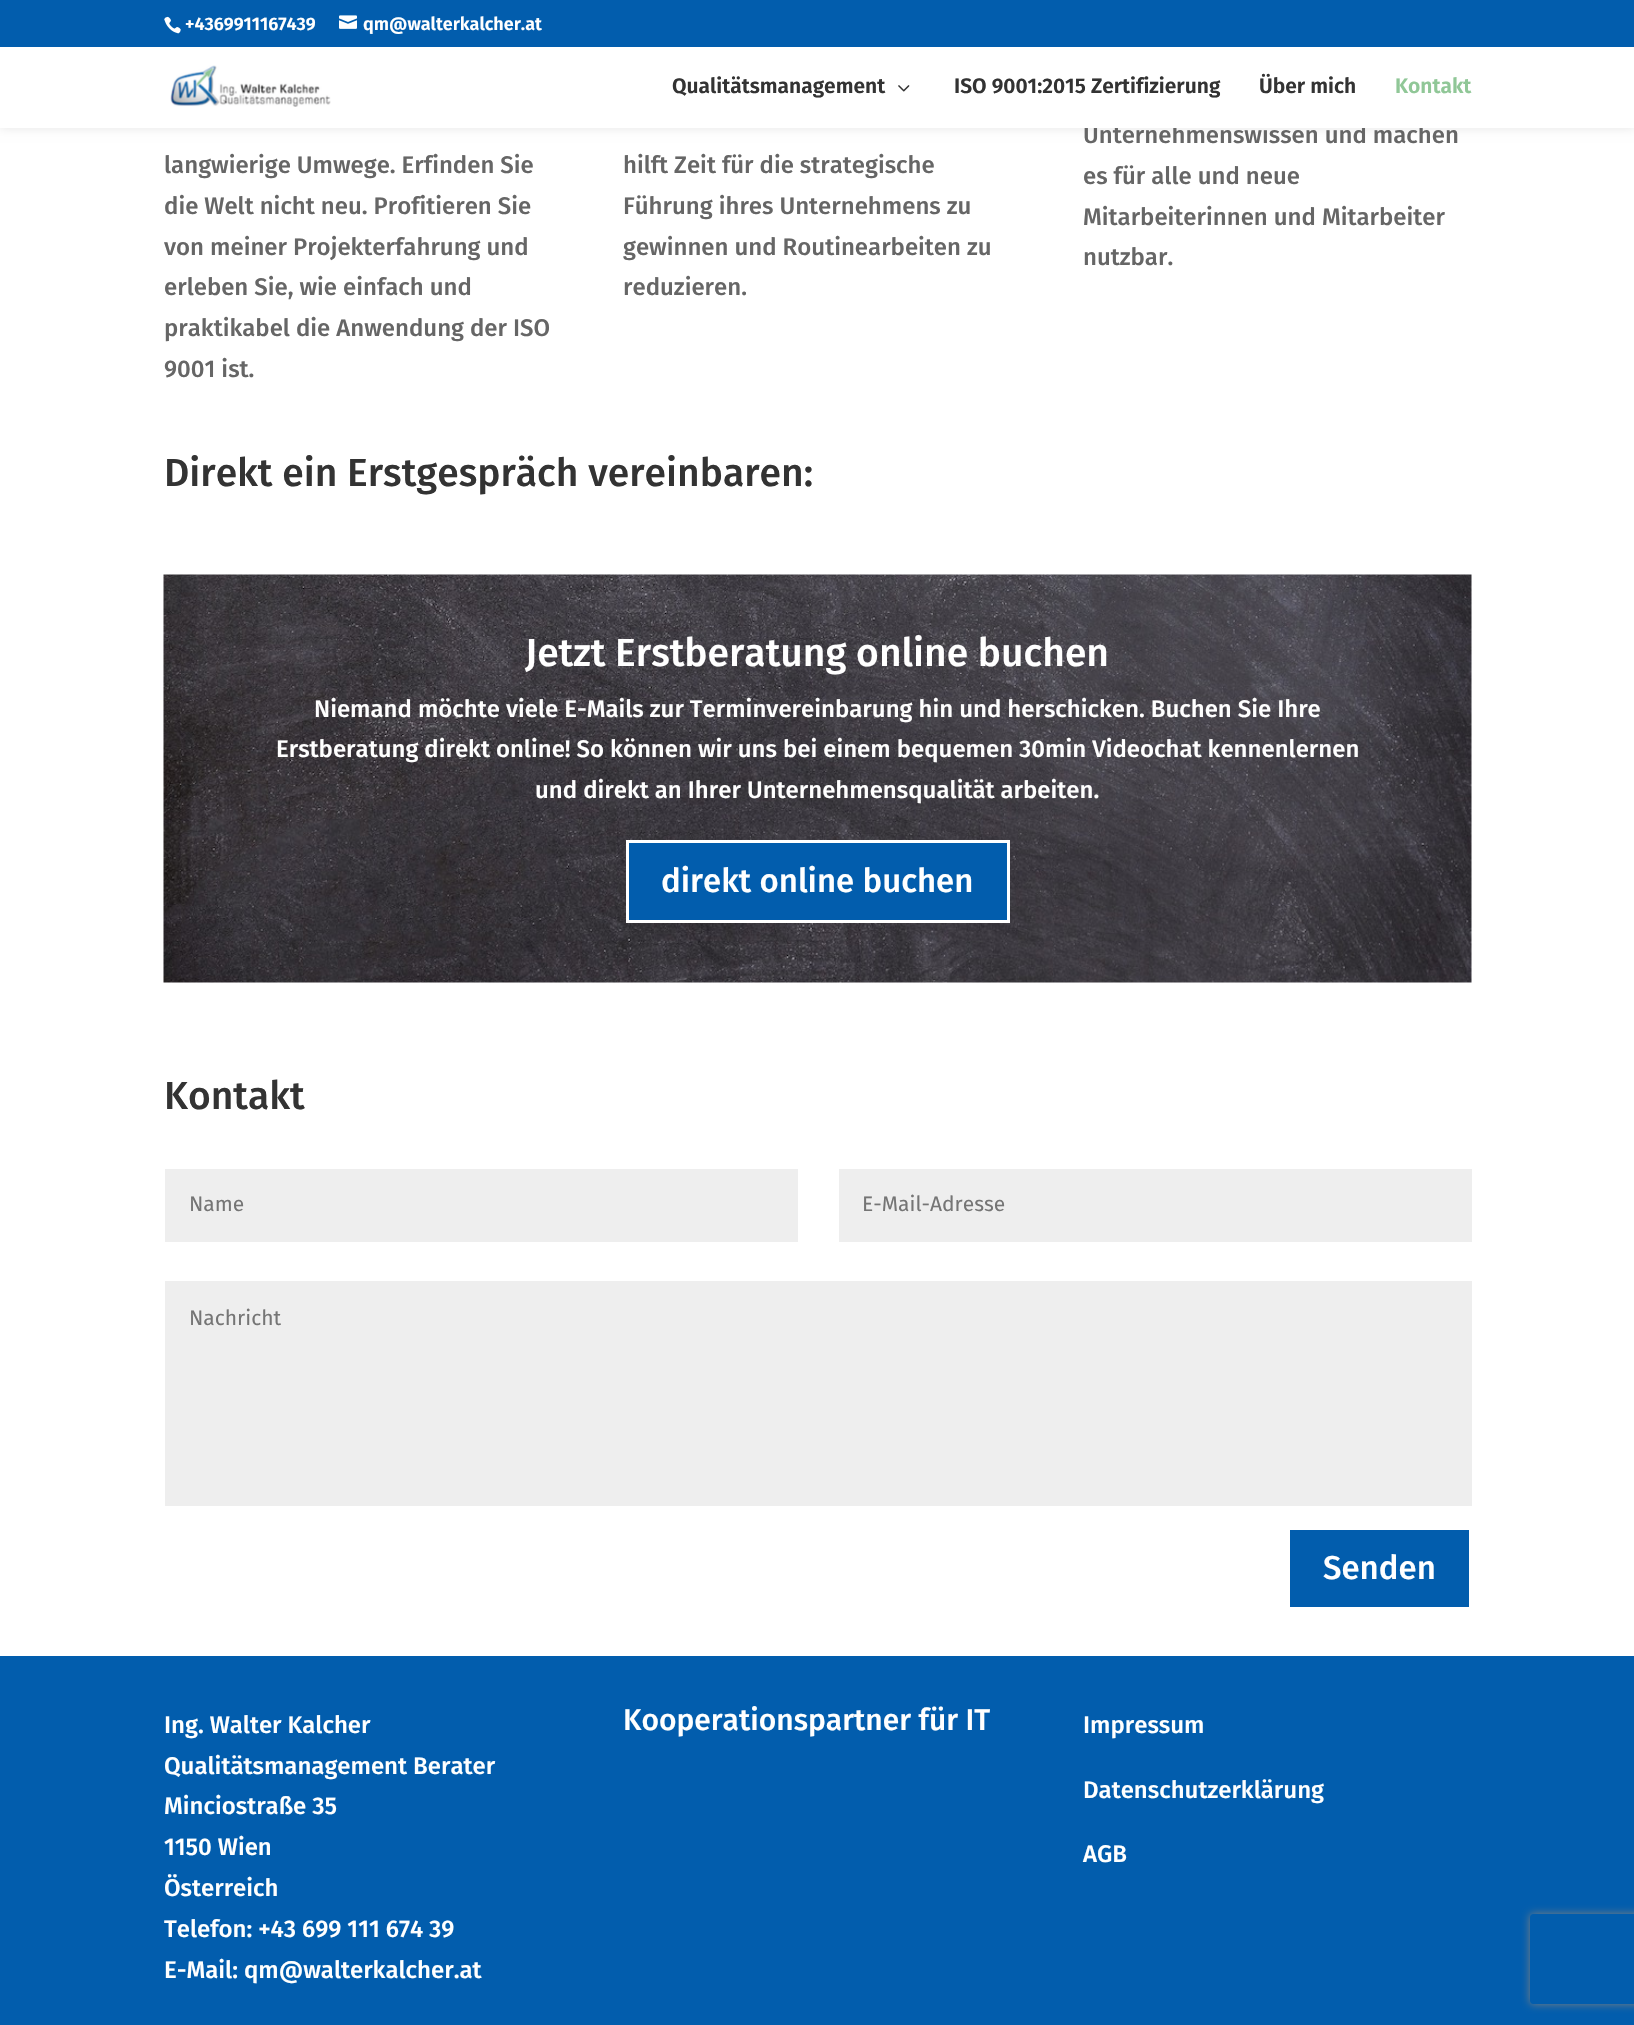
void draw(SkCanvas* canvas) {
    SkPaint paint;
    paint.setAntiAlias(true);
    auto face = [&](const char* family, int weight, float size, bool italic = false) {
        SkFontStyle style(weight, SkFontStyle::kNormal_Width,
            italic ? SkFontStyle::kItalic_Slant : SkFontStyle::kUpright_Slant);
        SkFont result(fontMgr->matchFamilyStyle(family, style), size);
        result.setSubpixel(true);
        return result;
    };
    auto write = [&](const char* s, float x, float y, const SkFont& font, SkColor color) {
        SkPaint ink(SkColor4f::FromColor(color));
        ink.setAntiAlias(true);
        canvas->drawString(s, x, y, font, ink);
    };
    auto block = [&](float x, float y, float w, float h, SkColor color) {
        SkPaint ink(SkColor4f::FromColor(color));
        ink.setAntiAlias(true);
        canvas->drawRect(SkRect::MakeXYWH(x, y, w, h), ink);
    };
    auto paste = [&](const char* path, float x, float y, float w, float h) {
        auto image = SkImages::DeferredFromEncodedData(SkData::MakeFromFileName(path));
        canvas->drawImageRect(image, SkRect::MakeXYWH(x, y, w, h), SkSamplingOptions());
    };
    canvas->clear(SK_ColorWHITE);
    paint.setColor(SkColorSetARGB(26, 0, 0, 0));
    paint.setMaskFilter(SkMaskFilter::MakeBlur(kNormal_SkBlurStyle, 5));
    canvas->drawRect(SkRect::MakeXYWH(0, 47, 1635, 81), paint);
    paint.setMaskFilter(nullptr);
    block(0, 0, 1634, 47, SkColorSetRGB(2, 93, 173));
    paste("pic1.png", 164, 16, 17, 18);
    auto kFont1 = face("Fira Sans", 600, 18);
    write("+4369911167439", 185, 30, kFont1, SK_ColorWHITE);
    paste("pic2.png", 339, 15, 18, 14);
    write("qm@walterkalcher.at", 363, 30, kFont1, SK_ColorWHITE);
    auto kFont2 = face("Fira Sans", 500, 24);
    write("Unternehmenswissen und machen", 1083, 143, kFont2, SkColorSetRGB(102, 102, 102));
    block(0, 47, 1634, 81, SK_ColorWHITE);
    paste("pic3.png", 170, 65, 161, 42);
    auto kFont3 = face("Fira Sans", 600, 21);
    write("Qualitätsmanagement", 672, 93, kFont3, SkColorSetRGB(51, 51, 51));
    paste("pic4.png", 898, 85, 12, 7);
    write("ISO 9001:2015 Zertifizierung", 954, 93, kFont3, SkColorSetRGB(51, 51, 51));
    write("Über mich", 1259, 93, kFont3, SkColorSetRGB(51, 51, 51));
    write("Kontakt", 1395, 93, kFont3, SkColorSetRGB(144, 199, 151));
    write("langwierige Umwege. Erfinden Sie", 164, 173, kFont2, SkColorSetRGB(102, 102, 102));
    write("die Welt nicht neu. Profitieren Sie", 164, 214, kFont2, SkColorSetRGB(102, 102, 102));
    write("von meiner Projekterfahrung und", 164, 255, kFont2, SkColorSetRGB(102, 102, 102));
    write("erleben Sie, wie einfach und", 164, 295, kFont2, SkColorSetRGB(102, 102, 102));
    write("praktikabel die Anwendung der ISO", 164, 336, kFont2, SkColorSetRGB(102, 102, 102));
    write("9001 ist.", 164, 377, kFont2, SkColorSetRGB(102, 102, 102));
    write("hilft Zeit für die strategische", 623, 173, kFont2, SkColorSetRGB(102, 102, 102));
    write("Führung ihres Unternehmens zu", 623, 214, kFont2, SkColorSetRGB(102, 102, 102));
    write("gewinnen und Routinearbeiten zu", 623, 255, kFont2, SkColorSetRGB(102, 102, 102));
    write("reduzieren.", 623, 295, kFont2, SkColorSetRGB(102, 102, 102));
    write("es für alle und neue", 1083, 184, kFont2, SkColorSetRGB(102, 102, 102));
    write("Mitarbeiterinnen und Mitarbeiter", 1083, 225, kFont2, SkColorSetRGB(102, 102, 102));
    write("nutzbar.", 1083, 265, kFont2, SkColorSetRGB(102, 102, 102));
    auto kFont4 = face("Fira Sans", 500, 39);
    write("Direkt ein Erstgespräch vereinbaren:", 164, 486, kFont4, SkColorSetRGB(51, 51, 51));
    paste("pic5.png", 163, 574, 1309, 409);
    write("Jetzt Erstberatung online buchen", 525, 666, kFont4, SK_ColorWHITE);
    write("Niemand möchte viele E-Mails zur Terminvereinbarung hin und herschicken. Buchen Sie Ihre", 314, 717, kFont2, SK_ColorWHITE);
    write("Erstberatung direkt online! So können wir uns bei einem bequemen 30min Videochat kennenlernen", 276, 757, kFont2, SK_ColorWHITE);
    write("und direkt an Ihrer Unternehmensqualität arbeiten.", 535, 798, kFont2, SK_ColorWHITE);
    paint.setColor(SkColorSetRGB(2, 93, 173));
    canvas->drawRect(SkRect::MakeXYWH(627.5f, 841.5f, 381, 80), paint);
    paint.setStyle(SkPaint::kStroke_Style);
    paint.setStrokeWidth(3);
    paint.setColor(SK_ColorWHITE);
    canvas->drawRect(SkRect::MakeXYWH(627.5f, 841.5f, 381, 80), paint);
    auto kFont5 = face("Fira Sans", 500, 33);
    write("direkt online buchen", 661, 892, kFont5, SK_ColorWHITE);
    write("Kontakt", 164, 1109, kFont4, SkColorSetRGB(51, 51, 51));
    block(165, 1169, 633, 73, SkColorSetRGB(238, 238, 238));
    auto kFont6 = face("Fira Sans", 400, 21);
    write("Name", 189, 1211, kFont6, SkColorSetRGB(117, 117, 117));
    block(839, 1169, 633, 73, SkColorSetRGB(238, 238, 238));
    write("E-Mail-Adresse", 862, 1211, kFont6, SkColorSetRGB(117, 117, 117));
    block(165, 1281, 1307, 225, SkColorSetRGB(238, 238, 238));
    write("Nachricht", 189, 1325, kFont6, SkColorSetRGB(117, 117, 117));
    block(1290, 1530, 179, 77, SkColorSetRGB(2, 93, 173));
    write("Senden", 1323, 1579, kFont5, SK_ColorWHITE);
    block(0, 1656, 1634, 369, SkColorSetRGB(2, 93, 173));
    write("Ing. Walter Kalcher", 164, 1733, kFont2, SK_ColorWHITE);
    write("Qualitätsmanagement Berater", 164, 1774, kFont2, SK_ColorWHITE);
    write("Minciostraße 35", 164, 1814, kFont2, SK_ColorWHITE);
    write("1150 Wien", 164, 1855, kFont2, SK_ColorWHITE);
    write("Österreich", 164, 1896, kFont2, SK_ColorWHITE);
    write("Telefon: +43 699 111 674 39", 164, 1937, kFont2, SK_ColorWHITE);
    write("E-Mail: qm@walterkalcher.at", 164, 1978, kFont2, SK_ColorWHITE);
    auto kFont7 = face("Fira Sans", 500, 30);
    write("Kooperationspartner für IT", 623, 1730, kFont7, SK_ColorWHITE);
    write("Impressum", 1083, 1733, kFont2, SK_ColorWHITE);
    write("Datenschutzerklärung", 1083, 1798, kFont2, SK_ColorWHITE);
    write("AGB", 1083, 1862, kFont2, SK_ColorWHITE);
    canvas->save();
    canvas->clipPath(SkPathBuilder(SkPathFillType::kEvenOdd).moveTo(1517, 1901).lineTo(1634, 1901).lineTo(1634, 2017).lineTo(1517, 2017).close().moveTo(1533, 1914).lineTo(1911, 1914).cubicTo(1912.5f, 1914, 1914, 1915.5f, 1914, 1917).lineTo(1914, 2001).cubicTo(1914, 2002.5f, 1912.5f, 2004, 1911, 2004).lineTo(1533, 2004).cubicTo(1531.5f, 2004, 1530, 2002.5f, 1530, 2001).lineTo(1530, 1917).cubicTo(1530, 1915.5f, 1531.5f, 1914, 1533, 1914).close().detach(), true);
    paint.setStyle(SkPaint::kFill_Style);
    paint.setColor(SkColorSetRGB(128, 128, 128));
    paint.setMaskFilter(SkMaskFilter::MakeBlur(kNormal_SkBlurStyle, 4));
    canvas->drawRoundRect(SkRect::MakeXYWH(1530, 1914, 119, 90), 3, 3, paint);
    paint.setMaskFilter(nullptr);
    canvas->restore();
}
